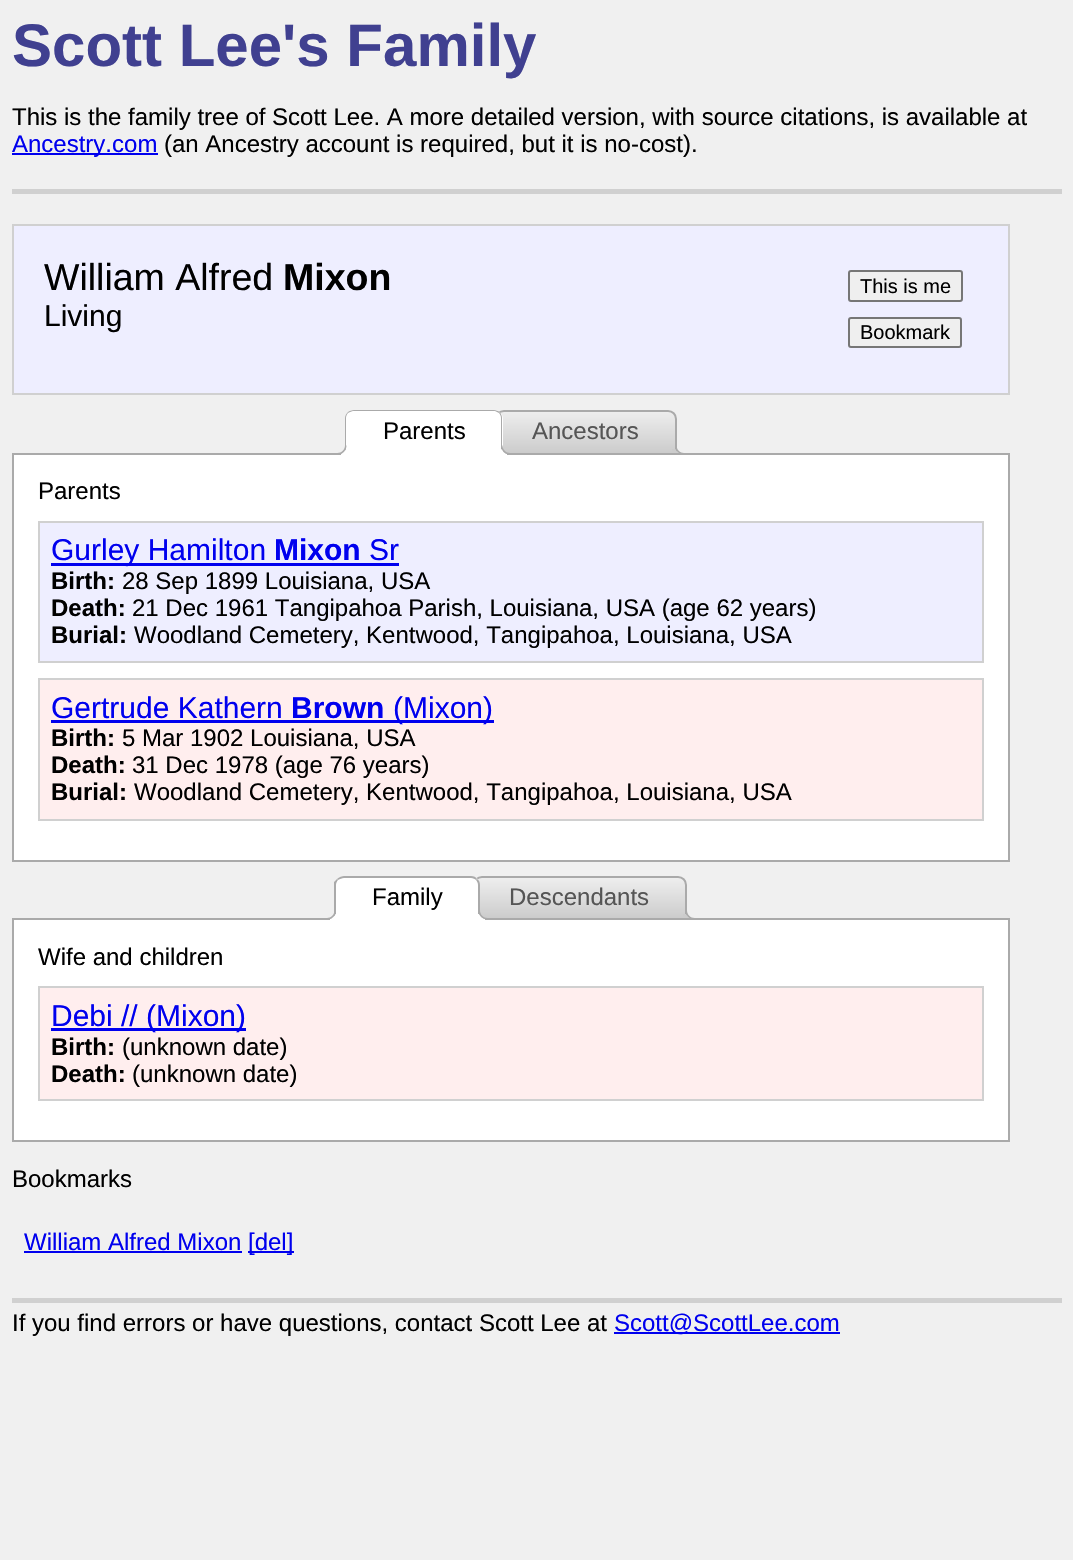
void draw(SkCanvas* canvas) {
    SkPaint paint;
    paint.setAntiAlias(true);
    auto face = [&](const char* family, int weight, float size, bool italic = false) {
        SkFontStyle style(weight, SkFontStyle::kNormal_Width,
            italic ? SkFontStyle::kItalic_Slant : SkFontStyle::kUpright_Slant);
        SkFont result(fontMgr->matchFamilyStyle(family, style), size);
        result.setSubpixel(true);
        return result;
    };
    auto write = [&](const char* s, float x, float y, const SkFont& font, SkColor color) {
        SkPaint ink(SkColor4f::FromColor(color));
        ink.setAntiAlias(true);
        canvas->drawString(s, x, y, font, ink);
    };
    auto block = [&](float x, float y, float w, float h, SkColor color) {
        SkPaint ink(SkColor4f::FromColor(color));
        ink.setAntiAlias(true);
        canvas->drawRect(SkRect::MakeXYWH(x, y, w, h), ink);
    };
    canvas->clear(SkColorSetRGB(240, 240, 240));
    block(12, 189, 1050, 5, SkColorSetRGB(208, 208, 208));
    auto kFont1 = face("Liberation Sans", 700, 60);
    write("Scott Lee's Family", 12, 66, kFont1, SkColorSetRGB(64, 64, 144));
    auto kFont2 = face("Liberation Sans", 400, 24);
    write("This is the family tree of Scott Lee. A more detailed version, with source citations, is available at", 12, 125, kFont2, SK_ColorBLACK);
    block(12, 153, 146, 2, SkColorSetRGB(0, 0, 238));
    write("Ancestry.com", 12, 152, kFont2, SkColorSetRGB(0, 0, 238));
    write("(an Ancestry account is required, but it is no-cost).", 164, 152, kFont2, SK_ColorBLACK);
    paint.setColor(SkColorSetRGB(238, 238, 255));
    canvas->drawRect(SkRect::MakeXYWH(13, 225, 996, 169), paint);
    paint.setStyle(SkPaint::kStroke_Style);
    paint.setStrokeWidth(2);
    paint.setColor(SkColorSetRGB(208, 208, 208));
    canvas->drawRect(SkRect::MakeXYWH(13, 225, 996, 169), paint);
    auto kFont3 = face("Liberation Sans", 400, 37.5f);
    write("William Alfred", 44, 290, kFont3, SK_ColorBLACK);
    auto kFont4 = face("Liberation Sans", 700, 37.5f);
    write("Mixon", 283, 290, kFont4, SK_ColorBLACK);
    auto kFont5 = face("Liberation Sans", 400, 30);
    write("Living", 44, 326, kFont5, SK_ColorBLACK);
    paint.setStyle(SkPaint::kFill_Style);
    paint.setColor(SkColorSetRGB(239, 239, 239));
    canvas->drawRoundRect(SkRect::MakeXYWH(849, 271, 113, 30), 2, 2, paint);
    paint.setStyle(SkPaint::kStroke_Style);
    paint.setColor(SkColorSetRGB(118, 118, 118));
    canvas->drawRoundRect(SkRect::MakeXYWH(849, 271, 113, 30), 2, 2, paint);
    auto kFont6 = face("Liberation Sans", 400, 20);
    write("This is me", 860, 293, kFont6, SK_ColorBLACK);
    paint.setStyle(SkPaint::kFill_Style);
    paint.setColor(SkColorSetRGB(239, 239, 239));
    canvas->drawRoundRect(SkRect::MakeXYWH(849, 318, 112, 29), 2, 2, paint);
    paint.setStyle(SkPaint::kStroke_Style);
    paint.setColor(SkColorSetRGB(118, 118, 118));
    canvas->drawRoundRect(SkRect::MakeXYWH(849, 318, 112, 29), 2, 2, paint);
    write("Bookmark", 860, 339, kFont6, SK_ColorBLACK);
    canvas->save();
    canvas->clipPath(SkPathBuilder().moveTo(504, 410).lineTo(668, 410).cubicTo(673, 410, 677, 414, 677, 419).lineTo(677, 455).lineTo(495, 455).lineTo(495, 419).cubicTo(495, 414, 499, 410, 504, 410).close().detach(), true);
    paint.setStyle(SkPaint::kFill_Style);
    {
        const SkColor colors[] = {SkColorSetRGB(238, 238, 238), SkColorSetRGB(204, 204, 204)};
        const float stops[] = {0, 1};
        const SkPoint ends[] = {{586, 411}, {586, 453}};
        paint.setShader(SkGradientShader::MakeLinear(ends, colors, stops, 2, SkTileMode::kClamp));
        paint.setAlpha(255);
    }
    canvas->drawRect(SkRect::MakeXYWH(498, 411, 179, 42), paint);
    canvas->restore();
    paint.setStyle(SkPaint::kStroke_Style);
    paint.setShader(nullptr);
    paint.setColor(SkColorSetRGB(170, 170, 170));
    canvas->drawPath(SkPathBuilder().moveTo(504, 411).lineTo(668, 411).cubicTo(672.5f, 411, 676, 414.5f, 676, 419).lineTo(676, 454).lineTo(496, 454).lineTo(496, 419).cubicTo(496, 414.5f, 499.5f, 411, 504, 411).close().detach(), paint);
    canvas->save();
    canvas->clipRect(SkRect::MakeXYWH(12, 410, 998, 45));
    paint.setStyle(SkPaint::kFill_Style);
    paint.setColor(SkColorSetRGB(204, 204, 204));
    canvas->drawPath(SkPathBuilder().moveTo(672, 449).cubicTo(672, 454, 676, 458, 681, 458).lineTo(681, 454).cubicTo(678.5f, 453, 676.5f, 451.5f, 675.5f, 449).close().detach(), paint);
    canvas->restore();
    paint.setColor(SkColorSetRGB(170, 170, 170));
    canvas->drawPath(SkPathBuilder(SkPathFillType::kEvenOdd).moveTo(675, 445.5f).lineTo(684, 445.5f).lineTo(684, 454.5f).cubicTo(679, 454.5f, 675, 450.5f, 675, 445.5f).close().moveTo(676.5f, 445.5f).lineTo(684, 445.5f).lineTo(684, 453).cubicTo(680, 453, 676.5f, 449.5f, 676.5f, 445.5f).close().detach(), paint);
    block(12, 453, 998, 2, SkColorSetRGB(170, 170, 170));
    paint.setColor(SK_ColorWHITE);
    canvas->drawPath(SkPathBuilder().moveTo(354, 410).lineTo(494, 410).cubicTo(499, 410, 503, 414, 503, 419).lineTo(503, 455).lineTo(345, 455).lineTo(345, 419).cubicTo(345, 414, 349, 410, 354, 410).close().detach(), paint);
    paint.setColor(SkColorSetRGB(170, 170, 170));
    canvas->drawPath(SkPathBuilder().moveTo(354, 410).cubicTo(352, 410, 349, 411, 348, 412).lineTo(348, 413).cubicTo(350, 412, 352, 411, 353, 411).lineTo(495, 411).lineTo(499, 413).lineTo(500, 412).cubicTo(498, 411, 496, 410, 494, 410).close().detach(), paint);
    canvas->drawPath(SkPathBuilder().moveTo(502, 454).lineTo(502, 418).cubicTo(502, 416, 501, 414, 500, 412).lineTo(499, 413).cubicTo(500, 414, 501, 416, 501, 418).lineTo(501, 453).close().detach(), paint);
    paint.setColor(SK_ColorWHITE);
    canvas->drawPath(SkPathBuilder().moveTo(502, 454).lineTo(501, 453).lineTo(346, 453).lineTo(346, 454).close().detach(), paint);
    paint.setColor(SkColorSetRGB(170, 170, 170));
    canvas->drawPath(SkPathBuilder().moveTo(345, 418).lineTo(345, 454).lineTo(346, 453).lineTo(346, 418).cubicTo(346, 416, 347, 414, 348, 413).lineTo(348, 412).cubicTo(346, 414, 345, 416, 345, 418).close().detach(), paint);
    write("Parents", 383, 439, kFont2, SK_ColorBLACK);
    canvas->save();
    canvas->clipRect(SkRect::MakeXYWH(12, 410, 998, 45));
    paint.setColor(SK_ColorWHITE);
    canvas->drawPath(SkPathBuilder().moveTo(341, 454).lineTo(341, 458).cubicTo(346, 458, 350, 454, 350, 449).lineTo(346, 449).cubicTo(345, 451, 343, 453, 341, 454).close().detach(), paint);
    canvas->restore();
    paint.setColor(SkColorSetRGB(170, 170, 170));
    canvas->drawPath(SkPathBuilder(SkPathFillType::kEvenOdd).moveTo(337.5f, 445.5f).lineTo(346.5f, 445.5f).cubicTo(346.5f, 450.5f, 342.5f, 454.5f, 337.5f, 454.5f).close().moveTo(337.5f, 445.5f).lineTo(345, 445.5f).cubicTo(345, 449.5f, 341.5f, 453, 337.5f, 453).close().detach(), paint);
    canvas->save();
    canvas->clipRect(SkRect::MakeXYWH(12, 410, 998, 45));
    paint.setColor(SK_ColorWHITE);
    canvas->drawPath(SkPathBuilder().moveTo(498, 449).cubicTo(498, 454, 502, 458, 507, 458).lineTo(507, 454).cubicTo(504.5f, 453, 502.5f, 451.5f, 501.5f, 449).close().detach(), paint);
    canvas->restore();
    paint.setColor(SkColorSetRGB(170, 170, 170));
    canvas->drawPath(SkPathBuilder(SkPathFillType::kEvenOdd).moveTo(501, 445.5f).lineTo(510, 445.5f).lineTo(510, 454.5f).cubicTo(505, 454.5f, 501, 450.5f, 501, 445.5f).close().moveTo(502.5f, 445.5f).lineTo(510, 445.5f).lineTo(510, 453).cubicTo(506, 453, 502.5f, 449.5f, 502.5f, 445.5f).close().detach(), paint);
    write("Ancestors", 532, 439, kFont2, SkColorSetRGB(85, 85, 85));
    block(14, 455, 994, 405, SK_ColorWHITE);
    block(1008, 455, 2, 406, SkColorSetRGB(170, 170, 170));
    block(12, 860, 998, 2, SkColorSetRGB(170, 170, 170));
    block(12, 455, 2, 406, SkColorSetRGB(170, 170, 170));
    write("Parents", 38, 499, kFont2, SK_ColorBLACK);
    paint.setColor(SkColorSetRGB(238, 238, 255));
    canvas->drawRect(SkRect::MakeXYWH(39, 522, 944, 140), paint);
    paint.setStyle(SkPaint::kStroke_Style);
    paint.setColor(SkColorSetRGB(208, 208, 208));
    canvas->drawRect(SkRect::MakeXYWH(39, 522, 944, 140), paint);
    block(51, 563, 348, 3, SkColorSetRGB(0, 0, 238));
    write("Gurley Hamilton", 51, 560, kFont5, SkColorSetRGB(0, 0, 238));
    auto kFont7 = face("Liberation Sans", 700, 30);
    write("Mixon", 274, 560, kFont7, SkColorSetRGB(0, 0, 238));
    write("Sr", 369, 560, kFont5, SkColorSetRGB(0, 0, 238));
    auto kFont8 = face("Liberation Sans", 700, 24);
    write("Birth:", 51, 589, kFont8, SK_ColorBLACK);
    write("28 Sep 1899 Louisiana, USA", 122, 589, kFont2, SK_ColorBLACK);
    write("Death:", 51, 616, kFont8, SK_ColorBLACK);
    write("21 Dec 1961 Tangipahoa Parish, Louisiana, USA (age 62 years)", 132, 616, kFont2, SK_ColorBLACK);
    write("Burial:", 51, 643, kFont8, SK_ColorBLACK);
    write("Woodland Cemetery, Kentwood, Tangipahoa, Louisiana, USA", 134, 643, kFont2, SK_ColorBLACK);
    paint.setStyle(SkPaint::kFill_Style);
    paint.setColor(SkColorSetRGB(255, 238, 238));
    canvas->drawRect(SkRect::MakeXYWH(39, 679, 944, 141), paint);
    paint.setStyle(SkPaint::kStroke_Style);
    paint.setColor(SkColorSetRGB(208, 208, 208));
    canvas->drawRect(SkRect::MakeXYWH(39, 679, 944, 141), paint);
    write("Gertrude Kathern", 51, 718, kFont5, SkColorSetRGB(0, 0, 238));
    write("Brown", 291, 718, kFont7, SkColorSetRGB(0, 0, 238));
    block(51, 720, 443, 3, SkColorSetRGB(0, 0, 238));
    write("(Mixon)", 393, 718, kFont5, SkColorSetRGB(0, 0, 238));
    write("Birth:", 51, 746, kFont8, SK_ColorBLACK);
    write("5 Mar 1902 Louisiana, USA", 122, 746, kFont2, SK_ColorBLACK);
    write("Death:", 51, 773, kFont8, SK_ColorBLACK);
    write("31 Dec 1978 (age 76 years)", 132, 773, kFont2, SK_ColorBLACK);
    write("Burial:", 51, 800, kFont8, SK_ColorBLACK);
    write("Woodland Cemetery, Kentwood, Tangipahoa, Louisiana, USA", 134, 800, kFont2, SK_ColorBLACK);
    canvas->save();
    canvas->clipPath(SkPathBuilder().moveTo(482, 876).lineTo(678, 876).cubicTo(683, 876, 687, 880, 687, 885).lineTo(687, 920).lineTo(473, 920).lineTo(473, 885).cubicTo(473, 880, 477, 876, 482, 876).close().detach(), true);
    paint.setStyle(SkPaint::kFill_Style);
    {
        const SkColor colors[] = {SkColorSetRGB(238, 238, 238), SkColorSetRGB(204, 204, 204)};
        const float stops[] = {0, 1};
        const SkPoint ends[] = {{580, 878}, {580, 918}};
        paint.setShader(SkGradientShader::MakeLinear(ends, colors, stops, 2, SkTileMode::kClamp));
        paint.setAlpha(255);
    }
    canvas->drawRect(SkRect::MakeXYWH(476, 878, 211, 40), paint);
    canvas->restore();
    paint.setStyle(SkPaint::kStroke_Style);
    paint.setShader(nullptr);
    paint.setColor(SkColorSetRGB(170, 170, 170));
    canvas->drawPath(SkPathBuilder().moveTo(482, 877).lineTo(678, 877).cubicTo(682.5f, 877, 686, 880.5f, 686, 885).lineTo(686, 919).lineTo(474, 919).lineTo(474, 885).cubicTo(474, 880.5f, 477.5f, 877, 482, 877).close().detach(), paint);
    canvas->save();
    canvas->clipRect(SkRect::MakeXYWH(12, 876, 998, 44));
    paint.setStyle(SkPaint::kFill_Style);
    paint.setColor(SkColorSetRGB(204, 204, 204));
    canvas->drawPath(SkPathBuilder().moveTo(683, 914).cubicTo(683, 919, 687, 923, 692, 923).lineTo(692, 919).cubicTo(689.5f, 918.5f, 687.5f, 916.5f, 686, 914).close().detach(), paint);
    canvas->restore();
    paint.setColor(SkColorSetRGB(170, 170, 170));
    canvas->drawPath(SkPathBuilder(SkPathFillType::kEvenOdd).moveTo(685.5f, 910.5f).lineTo(694.5f, 910.5f).lineTo(694.5f, 919.5f).cubicTo(689.5f, 919.5f, 685.5f, 915.5f, 685.5f, 910.5f).close().moveTo(687, 910.5f).lineTo(694.5f, 910.5f).lineTo(694.5f, 918).cubicTo(690.5f, 918, 687, 914.5f, 687, 910.5f).close().detach(), paint);
    block(12, 918, 998, 2, SkColorSetRGB(170, 170, 170));
    paint.setColor(SK_ColorWHITE);
    canvas->drawPath(SkPathBuilder().moveTo(344, 876).lineTo(471, 876).cubicTo(476, 876, 480, 880, 480, 885).lineTo(480, 920).lineTo(335, 920).lineTo(335, 885).cubicTo(335, 880, 339, 876, 344, 876).close().detach(), paint);
    paint.setColor(SkColorSetRGB(170, 170, 170));
    canvas->drawPath(SkPathBuilder().moveTo(344, 876).cubicTo(342, 876, 339, 877, 337, 879).lineTo(338, 880).cubicTo(340, 879, 342, 878, 344, 878).lineTo(471, 878).cubicTo(473, 878, 475, 879, 476, 880).lineTo(477, 879).cubicTo(476, 877, 474, 876, 471, 876).close().detach(), paint);
    canvas->drawPath(SkPathBuilder().moveTo(480, 920).lineTo(480, 885).cubicTo(480, 882, 479, 880, 477, 879).lineTo(476, 880).cubicTo(477, 881, 478, 883, 478, 885).lineTo(478, 918).close().detach(), paint);
    paint.setColor(SK_ColorWHITE);
    canvas->drawPath(SkPathBuilder().moveTo(480, 920).lineTo(478, 918).lineTo(336, 918).lineTo(334, 920).close().detach(), paint);
    paint.setColor(SkColorSetRGB(170, 170, 170));
    canvas->drawPath(SkPathBuilder().moveTo(334, 920).lineTo(334, 882).lineTo(337, 879).lineTo(338, 880).cubicTo(337, 881, 336, 883, 336, 885).lineTo(336, 918).close().detach(), paint);
    write("Family", 372, 905, kFont2, SK_ColorBLACK);
    canvas->save();
    canvas->clipRect(SkRect::MakeXYWH(12, 876, 998, 44));
    paint.setColor(SK_ColorWHITE);
    canvas->drawPath(SkPathBuilder().moveTo(330, 919).lineTo(330, 923).cubicTo(335, 923, 339, 919, 339, 914).lineTo(335.5f, 914).cubicTo(334.5f, 916.5f, 332.5f, 918, 330, 919).close().detach(), paint);
    canvas->restore();
    paint.setColor(SkColorSetRGB(170, 170, 170));
    canvas->drawPath(SkPathBuilder(SkPathFillType::kEvenOdd).moveTo(327, 910.5f).lineTo(336, 910.5f).cubicTo(336, 915.5f, 332, 919.5f, 327, 919.5f).close().moveTo(327, 910.5f).lineTo(334.5f, 910.5f).cubicTo(334.5f, 914.5f, 331, 918, 327, 918).close().detach(), paint);
    canvas->save();
    canvas->clipRect(SkRect::MakeXYWH(12, 876, 998, 44));
    paint.setColor(SK_ColorWHITE);
    canvas->drawPath(SkPathBuilder().moveTo(476, 914).cubicTo(476, 919, 480, 923, 485, 923).lineTo(485, 919).cubicTo(482.5f, 918.5f, 480.5f, 916.5f, 479, 914).close().detach(), paint);
    canvas->restore();
    paint.setColor(SkColorSetRGB(170, 170, 170));
    canvas->drawPath(SkPathBuilder(SkPathFillType::kEvenOdd).moveTo(478.5f, 910.5f).lineTo(487.5f, 910.5f).lineTo(487.5f, 919.5f).cubicTo(482.5f, 919.5f, 478.5f, 915.5f, 478.5f, 910.5f).close().moveTo(480, 910.5f).lineTo(487.5f, 910.5f).lineTo(487.5f, 918).cubicTo(483.5f, 918, 480, 914.5f, 480, 910.5f).close().detach(), paint);
    write("Descendants", 509, 905, kFont2, SkColorSetRGB(85, 85, 85));
    block(14, 920, 994, 220, SK_ColorWHITE);
    block(1008, 920, 2, 222, SkColorSetRGB(170, 170, 170));
    block(12, 1140, 998, 2, SkColorSetRGB(170, 170, 170));
    block(12, 920, 2, 222, SkColorSetRGB(170, 170, 170));
    write("Wife and children", 38, 965, kFont2, SK_ColorBLACK);
    paint.setColor(SkColorSetRGB(255, 238, 238));
    canvas->drawRect(SkRect::MakeXYWH(39, 987, 944, 113), paint);
    paint.setStyle(SkPaint::kStroke_Style);
    paint.setColor(SkColorSetRGB(208, 208, 208));
    canvas->drawRect(SkRect::MakeXYWH(39, 987, 944, 113), paint);
    block(51, 1028, 195, 3, SkColorSetRGB(0, 0, 238));
    write("Debi // (Mixon)", 51, 1026, kFont5, SkColorSetRGB(0, 0, 238));
    write("Birth:", 51, 1055, kFont8, SK_ColorBLACK);
    write("(unknown date)", 122, 1055, kFont2, SK_ColorBLACK);
    write("Death:", 51, 1082, kFont8, SK_ColorBLACK);
    write("(unknown date)", 132, 1082, kFont2, SK_ColorBLACK);
    write("Bookmarks", 12, 1187, kFont2, SK_ColorBLACK);
    write("William Alfred Mixon", 24, 1250, kFont2, SkColorSetRGB(0, 0, 238));
    block(24, 1251, 218, 2, SkColorSetRGB(0, 0, 238));
    block(248, 1251, 46, 2, SkColorSetRGB(0, 0, 238));
    write("[del]", 248, 1250, kFont2, SkColorSetRGB(0, 0, 238));
    block(12, 1298, 1050, 5, SkColorSetRGB(208, 208, 208));
    write("If you find errors or have questions, contact Scott Lee at", 12, 1331, kFont2, SK_ColorBLACK);
    block(614, 1332, 226, 2, SkColorSetRGB(0, 0, 238));
    write("Scott@ScottLee.com", 614, 1331, kFont2, SkColorSetRGB(0, 0, 238));
}
